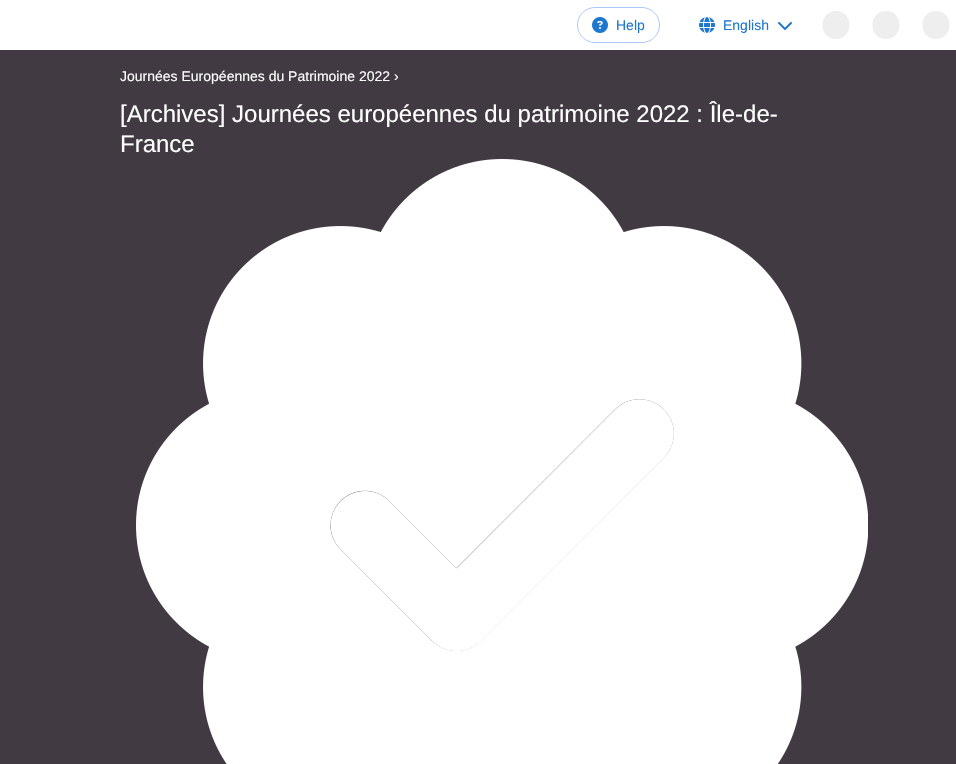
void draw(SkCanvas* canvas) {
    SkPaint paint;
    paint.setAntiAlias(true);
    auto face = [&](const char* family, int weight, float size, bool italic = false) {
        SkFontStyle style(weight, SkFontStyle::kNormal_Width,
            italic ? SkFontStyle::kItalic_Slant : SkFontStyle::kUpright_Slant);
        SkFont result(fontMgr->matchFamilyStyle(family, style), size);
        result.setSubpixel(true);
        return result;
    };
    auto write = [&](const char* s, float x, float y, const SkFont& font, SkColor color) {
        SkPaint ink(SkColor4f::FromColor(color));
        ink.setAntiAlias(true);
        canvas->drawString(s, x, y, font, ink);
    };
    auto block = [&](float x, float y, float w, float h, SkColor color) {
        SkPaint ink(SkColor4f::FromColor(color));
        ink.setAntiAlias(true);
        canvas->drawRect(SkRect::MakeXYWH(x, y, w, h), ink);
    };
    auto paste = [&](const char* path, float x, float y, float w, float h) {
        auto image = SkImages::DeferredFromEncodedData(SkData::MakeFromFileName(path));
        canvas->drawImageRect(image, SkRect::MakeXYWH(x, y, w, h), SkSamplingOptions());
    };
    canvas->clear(SkColorSetRGB(65, 58, 66));
    block(0, 0, 956, 50, SK_ColorWHITE);
    paint.setStyle(SkPaint::kStroke_Style);
    paint.setStrokeWidth(1);
    paint.setColor(SkColorSetRGB(172, 199, 252));
    canvas->drawRoundRect(SkRect::MakeXYWH(577.5f, 7.5f, 82, 35), 17.5f, 17.5f, paint);
    paste("pic1.png", 592, 17, 16, 16);
    auto kFont1 = face("Liberation Sans", 400, 14);
    write("Help", 616, 30, kFont1, SkColorSetRGB(29, 119, 206));
    paste("pic2.png", 699, 17, 16, 16);
    write("English", 723, 30, kFont1, SkColorSetRGB(29, 119, 206));
    paste("pic3.png", 778, 22, 14, 8);
    paint.setStyle(SkPaint::kFill_Style);
    {
        const SkColor colors[] = {SkColorSetRGB(238, 238, 238), SkColorSetRGB(214, 214, 214), SkColorSetRGB(238, 238, 238)};
        const float stops[] = {0, 0.5f, 1};
        const SkPoint ends[] = {{536, 5}, {676, 5}};
        paint.setShader(SkGradientShader::MakeLinear(ends, colors, stops, 3, SkTileMode::kClamp));
        paint.setAlpha(255);
    }
    canvas->drawPath(SkPathBuilder(SkPathFillType::kEvenOdd).moveTo(836, 11).cubicTo(818, 11, 818, 39, 836, 39).cubicTo(854, 39, 854, 11, 836, 11).close().moveTo(886, 11).cubicTo(868, 11, 868, 39, 886, 39).cubicTo(904, 39, 904, 11, 886, 11).close().moveTo(936, 11).cubicTo(918, 11, 918, 39, 936, 39).cubicTo(954, 39, 954, 11, 936, 11).close().detach(), paint);
    write("Journées Européennes du Patrimoine 2022 ›", 120, 81, kFont1, SK_ColorWHITE);
    auto kFont2 = face("Liberation Sans", 400, 24);
    write("[Archives] Journées européennes du patrimoine 2022 : Île-de-", 120, 122, kFont2, SK_ColorWHITE);
    write("France", 120, 152, kFont2, SK_ColorWHITE);
    paste("pic4.png", 136, 159, 732, 605);
}
